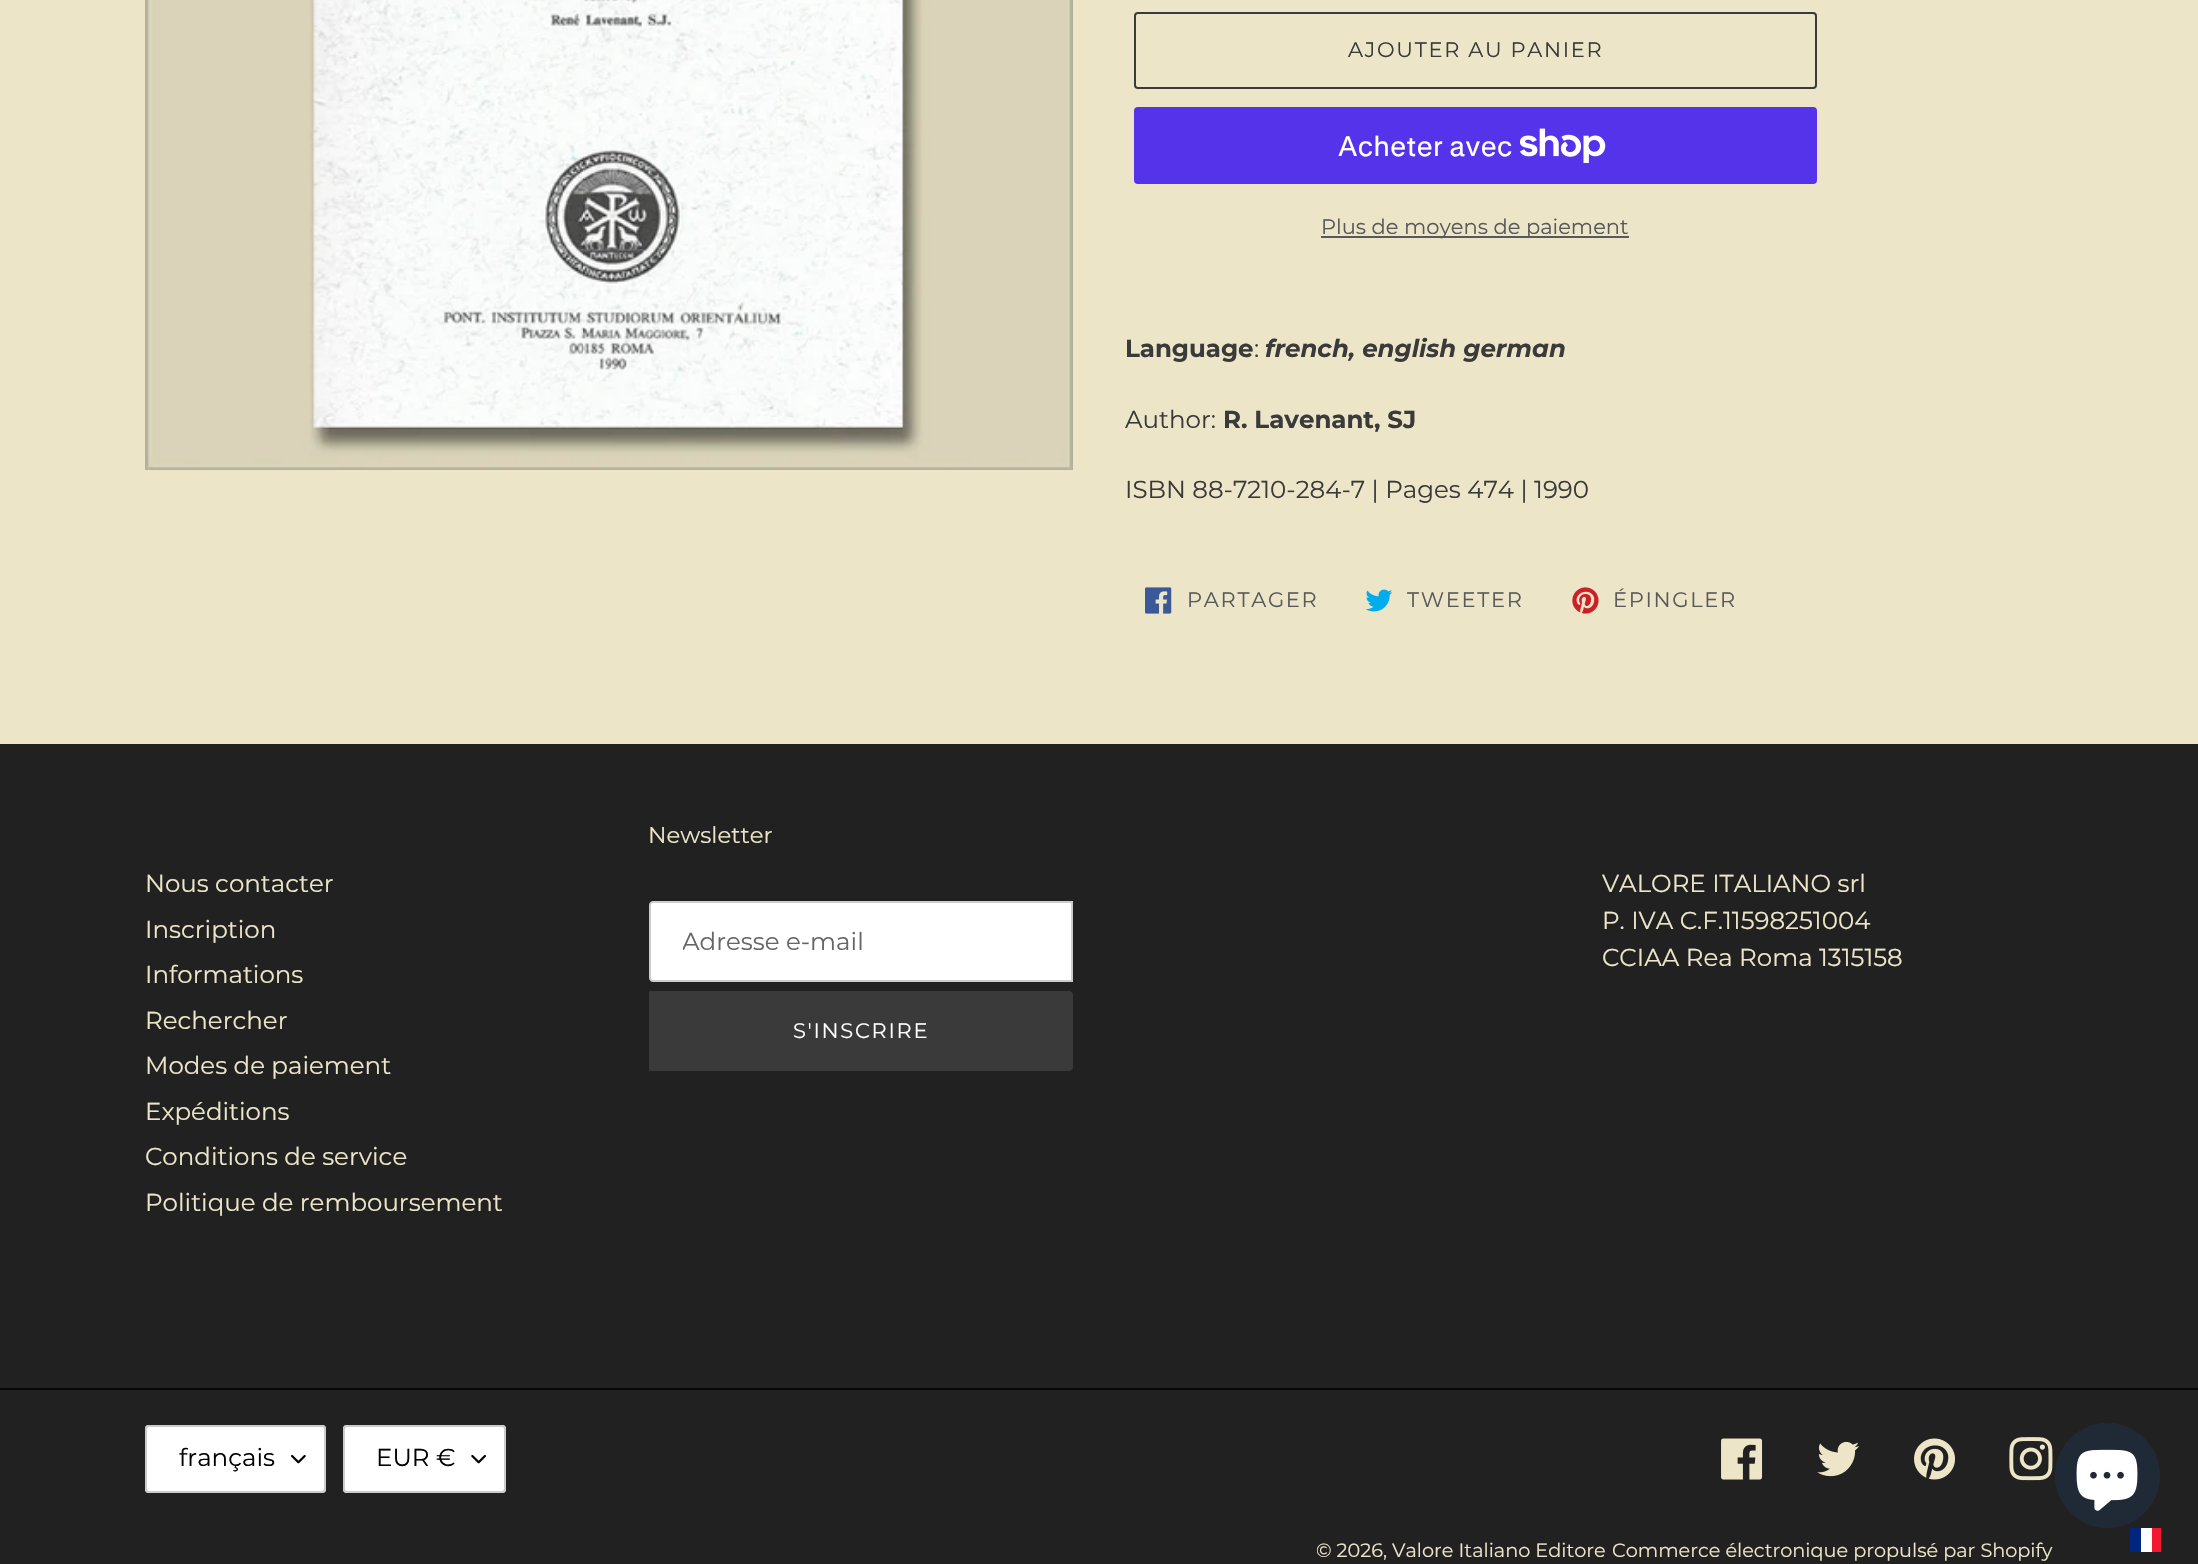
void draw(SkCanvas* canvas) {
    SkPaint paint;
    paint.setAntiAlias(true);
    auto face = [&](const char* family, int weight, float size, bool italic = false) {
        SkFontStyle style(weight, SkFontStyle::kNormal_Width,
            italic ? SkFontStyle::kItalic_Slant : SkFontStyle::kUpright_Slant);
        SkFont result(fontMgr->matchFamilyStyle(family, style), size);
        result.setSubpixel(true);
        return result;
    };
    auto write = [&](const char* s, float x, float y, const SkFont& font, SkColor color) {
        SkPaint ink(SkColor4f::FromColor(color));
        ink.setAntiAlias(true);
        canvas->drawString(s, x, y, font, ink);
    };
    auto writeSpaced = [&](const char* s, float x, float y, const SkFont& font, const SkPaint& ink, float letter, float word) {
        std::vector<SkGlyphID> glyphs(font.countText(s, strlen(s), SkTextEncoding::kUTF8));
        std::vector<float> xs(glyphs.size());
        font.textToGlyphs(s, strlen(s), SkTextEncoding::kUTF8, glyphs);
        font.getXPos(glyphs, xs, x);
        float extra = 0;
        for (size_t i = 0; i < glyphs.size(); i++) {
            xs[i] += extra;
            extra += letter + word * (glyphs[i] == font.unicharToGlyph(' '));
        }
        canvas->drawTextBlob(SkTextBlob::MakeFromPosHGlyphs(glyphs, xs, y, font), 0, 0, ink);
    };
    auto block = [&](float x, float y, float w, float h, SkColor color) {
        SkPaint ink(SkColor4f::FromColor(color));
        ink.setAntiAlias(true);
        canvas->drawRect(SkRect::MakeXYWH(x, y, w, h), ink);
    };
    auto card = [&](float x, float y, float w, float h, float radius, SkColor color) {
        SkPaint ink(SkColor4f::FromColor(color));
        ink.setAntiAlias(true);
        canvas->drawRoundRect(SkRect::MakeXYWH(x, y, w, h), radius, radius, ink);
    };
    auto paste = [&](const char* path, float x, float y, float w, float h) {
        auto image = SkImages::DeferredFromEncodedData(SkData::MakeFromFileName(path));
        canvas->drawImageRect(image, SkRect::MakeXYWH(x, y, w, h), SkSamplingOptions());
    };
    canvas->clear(SkColorSetRGB(236, 229, 200));
    paste("pic1.png", 145, 0, 928, 470);
    paint.setStyle(SkPaint::kStroke_Style);
    paint.setStrokeWidth(2);
    paint.setColor(SkColorSetRGB(58, 58, 58));
    canvas->drawRoundRect(SkRect::MakeXYWH(1135, 13, 681, 75), 3, 3, paint);
    auto kFont1 = face("Montserrat", 400, 21);
    paint.setStyle(SkPaint::kFill_Style);
    writeSpaced("AJOUTER AU PANIER", 1348, 57, kFont1, paint, 1.7f, 0);
    card(1134, 107, 683, 77, 4, SkColorSetRGB(84, 51, 235));
    auto kFont2 = face("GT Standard", 400, 28);
    write("Acheter avec", 1338, 156, kFont2, SK_ColorWHITE);
    paste("pic2.png", 1520, 128, 86, 35);
    block(1321, 236, 308, 2, SkColorSetRGB(88, 89, 91));
    write("Plus de moyens de paiement", 1321, 234, kFont1, SkColorSetRGB(88, 89, 91));
    auto kFont3 = face("Montserrat", 700, 24.5f);
    write("Language", 1125, 357, kFont3, SkColorSetRGB(58, 58, 58));
    auto kFont4 = face("Montserrat", 400, 24.5f);
    write(":", 1254, 357, kFont4, SkColorSetRGB(58, 58, 58));
    auto kFont5 = face("Montserrat", 700, 24.5f, true);
    write("french, english german", 1265, 357, kFont5, SkColorSetRGB(58, 58, 58));
    write("Author:", 1125, 428, kFont4, SkColorSetRGB(58, 58, 58));
    write("R. Lavenant, SJ", 1223, 428, kFont3, SkColorSetRGB(58, 58, 58));
    write("ISBN 88-7210-284-7 | Pages 474 | 1990", 1125, 498, kFont4, SkColorSetRGB(58, 58, 58));
    paste("pic3.png", 1145, 587, 27, 27);
    paint.setColor(SkColorSetRGB(88, 89, 91));
    writeSpaced("PARTAGER", 1187, 607, kFont1, paint, 1.7f, 0);
    paste("pic4.png", 1365, 589, 28, 23);
    writeSpaced("TWEETER", 1407, 607, kFont1, paint, 1.7f, 0);
    paste("pic5.png", 1572, 587, 27, 27);
    writeSpaced("ÉPINGLER", 1613, 607, kFont1, paint, 1.7f, 0);
    block(0, 744, 2198, 820, SkColorSetRGB(33, 33, 33));
    write("Nous contacter", 145, 892, kFont4, SkColorSetRGB(236, 229, 200));
    write("Inscription", 145, 938, kFont4, SkColorSetRGB(236, 229, 200));
    write("Informations", 145, 983, kFont4, SkColorSetRGB(236, 229, 200));
    write("Rechercher", 145, 1029, kFont4, SkColorSetRGB(236, 229, 200));
    write("Modes de paiement", 145, 1074, kFont4, SkColorSetRGB(236, 229, 200));
    write("Expéditions", 145, 1120, kFont4, SkColorSetRGB(236, 229, 200));
    write("Conditions de service", 145, 1165, kFont4, SkColorSetRGB(236, 229, 200));
    write("Politique de remboursement", 145, 1211, kFont4, SkColorSetRGB(236, 229, 200));
    auto kFont6 = face("Montserrat", 400, 22.75f);
    write("Newsletter", 648, 843, kFont6, SkColorSetRGB(236, 229, 200));
    paint.setColor(SK_ColorWHITE);
    canvas->drawPath(SkPathBuilder().moveTo(653, 902).lineTo(1072, 902).lineTo(1072, 981).lineTo(653, 981).cubicTo(651.5f, 981, 650, 979.5f, 650, 978).lineTo(650, 905).cubicTo(650, 903.5f, 651.5f, 902, 653, 902).close().detach(), paint);
    paint.setStyle(SkPaint::kStroke_Style);
    paint.setColor(SkColorSetRGB(204, 204, 204));
    canvas->drawPath(SkPathBuilder().moveTo(653, 902).lineTo(1072, 902).lineTo(1072, 981).lineTo(653, 981).cubicTo(651.5f, 981, 650, 979.5f, 650, 978).lineTo(650, 905).cubicTo(650, 903.5f, 651.5f, 902, 653, 902).close().detach(), paint);
    canvas->save();
    canvas->clipRect(SkRect::MakeXYWH(683, 926, 357, 31));
    write("Adresse e-mail", 682, 950, kFont4, SkColorSetRGB(102, 102, 102));
    canvas->restore();
    paint.setStyle(SkPaint::kFill_Style);
    paint.setColor(SkColorSetRGB(58, 58, 58));
    canvas->drawPath(SkPathBuilder().moveTo(649, 991).lineTo(1069, 991).cubicTo(1071, 991, 1073, 993, 1073, 995).lineTo(1073, 1067).cubicTo(1073, 1069, 1071, 1071, 1069, 1071).lineTo(649, 1071).close().detach(), paint);
    paint.setColor(SK_ColorWHITE);
    writeSpaced("S'INSCRIRE", 793, 1038, kFont1, paint, 1.7f, 0);
    write("VALORE ITALIANO srl", 1602, 892, kFont4, SkColorSetRGB(236, 229, 200));
    write("P. IVA C.F.11598251004", 1602, 929, kFont4, SkColorSetRGB(236, 229, 200));
    write("CCIAA Rea Roma 1315158", 1602, 966, kFont4, SkColorSetRGB(236, 229, 200));
    block(0, 1388, 2198, 2, SkColorSetRGB(8, 8, 8));
    card(145, 1425, 181, 68, 4, SK_ColorWHITE);
    paste("pic6.png", 291, 1454, 15, 10);
    paint.setStyle(SkPaint::kStroke_Style);
    paint.setColor(SkColorSetRGB(204, 204, 204));
    canvas->drawRoundRect(SkRect::MakeXYWH(146, 1426, 179, 66), 3, 3, paint);
    write("français", 179, 1466, kFont4, SK_ColorBLACK);
    card(343, 1425, 163, 68, 4, SK_ColorWHITE);
    paste("pic7.png", 471, 1454, 15, 10);
    canvas->drawRoundRect(SkRect::MakeXYWH(344, 1426, 161, 66), 3, 3, paint);
    write("EUR €", 376, 1466, kFont4, SK_ColorBLACK);
    paste("pic8.png", 1721, 1438, 42, 42);
    paste("pic9.png", 1817, 1441, 43, 36);
    paste("pic10.png", 1914, 1438, 41, 42);
    paste("pic11.png", 2009, 1437, 44, 44);
    auto kFont7 = face("Montserrat", 400, 19.25f);
    write("© 2026, Valore Italiano Editore", 1316, 1557, kFont7, SkColorSetRGB(236, 229, 200));
    write("Commerce électronique propulsé par Shopify", 1612, 1557, kFont7, SkColorSetRGB(236, 229, 200));
    paint.setStyle(SkPaint::kFill_Style);
    paint.setColor(SkColorSetRGB(32, 42, 54));
    canvas->drawCircle(2107.5f, 1475.5f, 52.5f, paint);
    paste("pic12.png", 2076, 1449, 62, 62);
    block(2141, 1528, 11, 24, SK_ColorWHITE);
    block(2130, 1528, 11, 24, SkColorSetRGB(0, 38, 127));
    block(2152, 1528, 9, 24, SkColorSetRGB(243, 24, 48));
}
